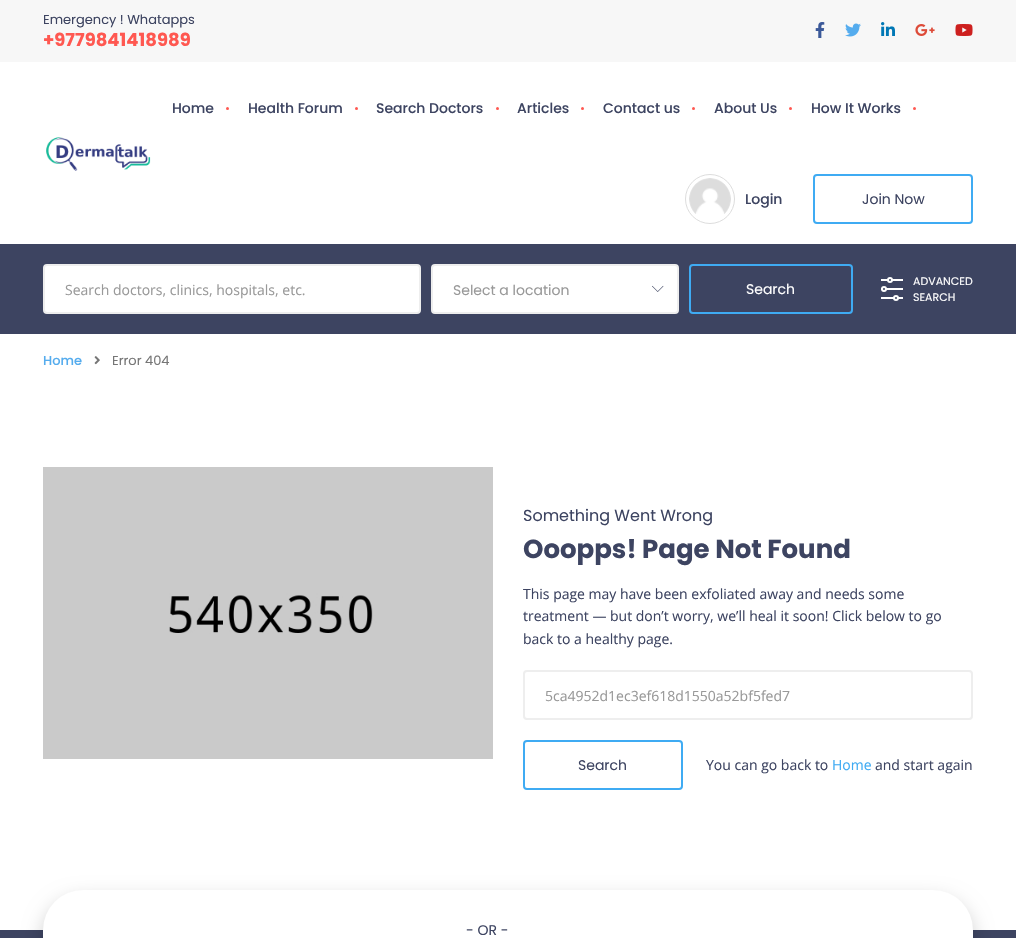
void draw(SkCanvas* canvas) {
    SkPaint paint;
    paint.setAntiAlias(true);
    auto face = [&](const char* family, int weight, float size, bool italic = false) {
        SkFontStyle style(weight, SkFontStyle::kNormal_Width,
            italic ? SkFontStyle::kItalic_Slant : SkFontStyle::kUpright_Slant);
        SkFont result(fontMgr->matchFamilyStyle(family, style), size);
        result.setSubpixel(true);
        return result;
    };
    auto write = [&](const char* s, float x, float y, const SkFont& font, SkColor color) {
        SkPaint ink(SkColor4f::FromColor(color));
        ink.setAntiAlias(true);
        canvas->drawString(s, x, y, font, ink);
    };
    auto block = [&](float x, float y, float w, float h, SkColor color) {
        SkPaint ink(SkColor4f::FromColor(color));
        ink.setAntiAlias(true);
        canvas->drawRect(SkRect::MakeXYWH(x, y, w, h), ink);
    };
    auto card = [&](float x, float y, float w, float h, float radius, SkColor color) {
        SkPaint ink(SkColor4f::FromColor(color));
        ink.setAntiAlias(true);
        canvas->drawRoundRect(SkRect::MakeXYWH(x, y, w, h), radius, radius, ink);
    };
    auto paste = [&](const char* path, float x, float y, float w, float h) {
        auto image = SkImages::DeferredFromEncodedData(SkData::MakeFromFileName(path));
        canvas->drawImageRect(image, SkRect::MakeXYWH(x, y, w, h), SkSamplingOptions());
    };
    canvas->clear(SK_ColorWHITE);
    block(0, 0, 1016, 62, SkColorSetRGB(247, 247, 247));
    auto kFont1 = face("Poppins", 400, 13);
    write("Emergency ! Whatapps", 43, 24, kFont1, SkColorSetRGB(61, 68, 97));
    auto kFont2 = face("Poppins", 700, 18);
    write("+9779841418989", 43, 46, kFont2, SkColorSetRGB(255, 88, 81));
    paste("pic1.png", 815, 22, 10, 16);
    paste("pic2.png", 845, 23, 16, 14);
    paste("pic3.png", 881, 22, 14, 14);
    paste("pic4.png", 915, 24, 20, 12);
    paste("pic5.png", 955, 24, 18, 12);
    paste("pic6.png", 46, 137, 105, 34);
    auto kFont3 = face("Poppins", 500, 14);
    write("Home", 172, 113, kFont3, SkColorSetRGB(61, 68, 97));
    paint.setColor(SkColorSetRGB(255, 88, 81));
    canvas->drawCircle(227.5f, 108.5f, 1.5f, paint);
    write("Health Forum", 248, 113, kFont3, SkColorSetRGB(61, 68, 97));
    canvas->drawCircle(356.5f, 108.5f, 1.5f, paint);
    write("Search Doctors", 376, 113, kFont3, SkColorSetRGB(61, 68, 97));
    canvas->drawCircle(497.5f, 108.5f, 1.5f, paint);
    write("Articles", 517, 113, kFont3, SkColorSetRGB(61, 68, 97));
    canvas->drawCircle(582.5f, 108.5f, 1.5f, paint);
    write("Contact us", 603, 113, kFont3, SkColorSetRGB(61, 68, 97));
    canvas->drawCircle(693.5f, 108.5f, 1.5f, paint);
    write("About Us", 714, 113, kFont3, SkColorSetRGB(61, 68, 97));
    canvas->drawCircle(790.5f, 108.5f, 1.5f, paint);
    write("How It Works", 811, 113, kFont3, SkColorSetRGB(61, 68, 97));
    canvas->drawCircle(914.5f, 108.5f, 1.5f, paint);
    paint.setStyle(SkPaint::kStroke_Style);
    paint.setStrokeWidth(1);
    paint.setColor(SkColorSetRGB(221, 221, 221));
    canvas->drawCircle(710, 199, 24.5f, paint);
    paste("pic7.png", 689, 178, 42, 36);
    write("Login", 745, 204, kFont3, SkColorSetRGB(61, 68, 97));
    paint.setStrokeWidth(2);
    paint.setColor(SkColorSetRGB(63, 171, 243));
    canvas->drawRoundRect(SkRect::MakeXYWH(814, 175, 158, 48), 3, 3, paint);
    auto kFont4 = face("Poppins", 400, 14);
    write("Join Now", 862, 204, kFont4, SkColorSetRGB(61, 68, 97));
    block(0, 244, 1016, 90, SkColorSetRGB(61, 68, 97));
    paint.setStyle(SkPaint::kFill_Style);
    paint.setColor(SK_ColorWHITE);
    canvas->drawRoundRect(SkRect::MakeXYWH(44, 265, 376, 48), 3, 3, paint);
    paint.setStyle(SkPaint::kStroke_Style);
    paint.setColor(SkColorSetRGB(238, 238, 238));
    canvas->drawRoundRect(SkRect::MakeXYWH(44, 265, 376, 48), 3, 3, paint);
    auto kFont5 = face("Open Sans", 400, 14);
    write("Search doctors, clinics, hospitals, etc.", 65, 295, kFont5, SkColorSetRGB(153, 153, 153));
    paint.setStyle(SkPaint::kFill_Style);
    paint.setColor(SK_ColorWHITE);
    canvas->drawRoundRect(SkRect::MakeXYWH(432, 265, 246, 48), 3, 3, paint);
    paint.setStyle(SkPaint::kStroke_Style);
    paint.setColor(SkColorSetRGB(238, 238, 238));
    canvas->drawRoundRect(SkRect::MakeXYWH(432, 265, 246, 48), 3, 3, paint);
    write("Select a location", 453, 295, kFont4, SkColorSetRGB(153, 153, 153));
    paste("pic8.png", 652, 285, 12, 7);
    paint.setColor(SkColorSetRGB(63, 171, 243));
    canvas->drawRoundRect(SkRect::MakeXYWH(690, 265, 162, 48), 3, 3, paint);
    write("Search", 746, 294, kFont4, SK_ColorWHITE);
    block(881, 279, 22, 2, SK_ColorWHITE);
    paint.setStyle(SkPaint::kFill_Style);
    paint.setColor(SkColorSetRGB(61, 68, 97));
    canvas->drawCircle(890, 280, 2, paint);
    paint.setStyle(SkPaint::kStroke_Style);
    paint.setColor(SK_ColorWHITE);
    canvas->drawCircle(890, 280, 2, paint);
    block(881, 288, 22, 2, SK_ColorWHITE);
    paint.setStyle(SkPaint::kFill_Style);
    paint.setColor(SkColorSetRGB(61, 68, 97));
    canvas->drawCircle(884, 289, 2, paint);
    paint.setStyle(SkPaint::kStroke_Style);
    paint.setColor(SK_ColorWHITE);
    canvas->drawCircle(884, 289, 2, paint);
    block(881, 297, 22, 2, SK_ColorWHITE);
    paint.setStyle(SkPaint::kFill_Style);
    paint.setColor(SkColorSetRGB(61, 68, 97));
    canvas->drawCircle(896, 298, 2, paint);
    paint.setStyle(SkPaint::kStroke_Style);
    paint.setColor(SK_ColorWHITE);
    canvas->drawCircle(896, 298, 2, paint);
    auto kFont6 = face("Poppins", 400, 11);
    write("ADVANCED", 913, 285, kFont6, SK_ColorWHITE);
    write("SEARCH", 913, 301, kFont6, SK_ColorWHITE);
    auto kFont7 = face("Poppins", 500, 13);
    write("Home", 43, 365, kFont7, SkColorSetRGB(85, 172, 238));
    paste("pic9.png", 94, 356, 6, 9);
    write("Error 404", 112, 365, kFont1, SkColorSetRGB(118, 118, 118));
    paste("pic10.png", 43, 467, 450, 292);
    auto kFont8 = face("Poppins", 400, 16);
    write("Something Went Wrong", 523, 521, kFont8, SkColorSetRGB(61, 68, 97));
    auto kFont9 = face("Poppins", 700, 26);
    write("Ooopps! Page Not Found", 523, 558, kFont9, SkColorSetRGB(61, 68, 97));
    write("This page may have been exfoliated away and needs some", 523, 599, kFont5, SkColorSetRGB(61, 68, 97));
    write("treatment — but don’t worry, we’ll heal it soon! Click below to go", 523, 621, kFont5, SkColorSetRGB(61, 68, 97));
    write("back to a healthy page.", 523, 644, kFont5, SkColorSetRGB(61, 68, 97));
    paint.setColor(SkColorSetRGB(238, 238, 238));
    canvas->drawRoundRect(SkRect::MakeXYWH(524, 671, 448, 48), 3, 3, paint);
    write("5ca4952d1ec3ef618d1550a52bf5fed7", 545, 701, kFont5, SkColorSetRGB(153, 153, 153));
    paint.setColor(SkColorSetRGB(63, 171, 243));
    canvas->drawRoundRect(SkRect::MakeXYWH(524, 741, 158, 48), 3, 3, paint);
    write("Search", 578, 770, kFont4, SkColorSetRGB(61, 68, 97));
    write("You can go back to", 706, 770, kFont5, SkColorSetRGB(61, 68, 97));
    write("Home", 832, 770, kFont5, SkColorSetRGB(63, 171, 243));
    write("and start again", 875, 770, kFont5, SkColorSetRGB(61, 68, 97));
    block(0, 930, 1016, 8, SkColorSetRGB(61, 68, 97));
    paint.setStyle(SkPaint::kFill_Style);
    paint.setColor(SkColorSetARGB(51, 0, 0, 0));
    paint.setMaskFilter(SkMaskFilter::MakeBlur(kNormal_SkBlurStyle, 10));
    canvas->drawRoundRect(SkRect::MakeXYWH(43, 899, 930, 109), 40, 40, paint);
    paint.setMaskFilter(nullptr);
    card(43, 890, 930, 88, 40, SK_ColorWHITE);
    write("- OR -", 466, 935, kFont4, SkColorSetRGB(61, 68, 97));
}
